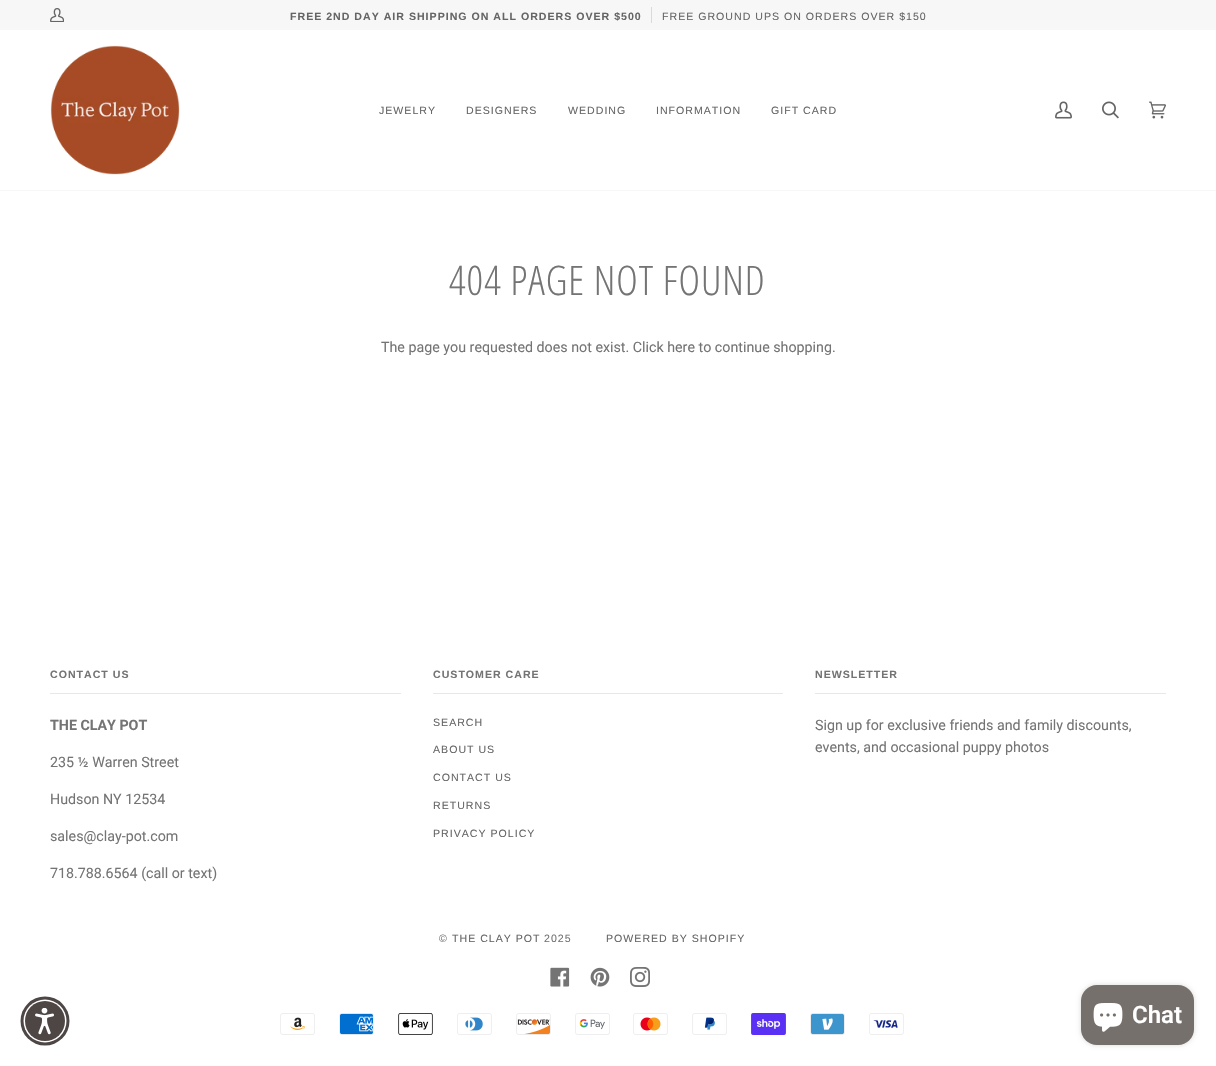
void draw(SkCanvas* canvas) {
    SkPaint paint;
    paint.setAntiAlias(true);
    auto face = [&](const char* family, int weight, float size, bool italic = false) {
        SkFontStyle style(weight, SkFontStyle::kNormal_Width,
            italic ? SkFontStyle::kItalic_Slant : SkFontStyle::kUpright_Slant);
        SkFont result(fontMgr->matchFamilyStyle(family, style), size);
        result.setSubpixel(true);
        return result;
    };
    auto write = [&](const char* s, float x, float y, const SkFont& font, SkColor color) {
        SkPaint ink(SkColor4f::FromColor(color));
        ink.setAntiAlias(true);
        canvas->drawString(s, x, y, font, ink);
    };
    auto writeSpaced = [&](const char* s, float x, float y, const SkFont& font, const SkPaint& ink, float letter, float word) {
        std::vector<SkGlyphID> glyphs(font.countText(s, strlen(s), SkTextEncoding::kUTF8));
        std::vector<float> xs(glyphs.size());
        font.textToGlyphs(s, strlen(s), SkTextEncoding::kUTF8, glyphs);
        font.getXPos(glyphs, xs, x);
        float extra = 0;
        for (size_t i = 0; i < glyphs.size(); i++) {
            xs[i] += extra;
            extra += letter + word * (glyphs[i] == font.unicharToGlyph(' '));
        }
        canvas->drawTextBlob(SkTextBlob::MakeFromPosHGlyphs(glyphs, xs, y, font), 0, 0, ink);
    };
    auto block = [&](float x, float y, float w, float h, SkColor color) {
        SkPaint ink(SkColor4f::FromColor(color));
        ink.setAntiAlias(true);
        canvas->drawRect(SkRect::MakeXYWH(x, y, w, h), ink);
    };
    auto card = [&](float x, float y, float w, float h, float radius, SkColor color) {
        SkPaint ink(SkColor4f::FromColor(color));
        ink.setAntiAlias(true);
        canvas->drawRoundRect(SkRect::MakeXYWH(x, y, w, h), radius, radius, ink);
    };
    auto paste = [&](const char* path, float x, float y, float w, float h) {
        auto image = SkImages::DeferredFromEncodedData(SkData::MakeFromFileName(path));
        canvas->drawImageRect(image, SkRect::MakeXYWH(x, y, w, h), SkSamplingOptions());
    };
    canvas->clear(SK_ColorWHITE);
    block(0, 0, 1216, 30, SkColorSetRGB(247, 247, 247));
    paste("pic1.png", 50, 8, 14, 14);
    auto kFont1 = face("Liberation Sans", 700, 10.6f);
    paint.setColor(SkColorSetRGB(101, 101, 101));
    writeSpaced("FREE 2ND DAY AIR SHIPPING ON ALL ORDERS OVER $500", 290, 20, kFont1, paint, 1, 0);
    block(651, 7, 1, 16, SkColorSetRGB(218, 218, 218));
    auto kFont2 = face("Liberation Sans", 400, 10.6f);
    writeSpaced("FREE GROUND UPS ON ORDERS OVER $150", 662, 20, kFont2, paint, 1, 0);
    block(0, 190, 1216, 1, SkColorSetRGB(247, 247, 247));
    paste("pic2.png", 50, 45, 130, 130);
    writeSpaced("JEWELRY", 379, 114, kFont2, paint, 1, 0);
    writeSpaced("DESIGNERS", 466, 114, kFont2, paint, 1, 0);
    writeSpaced("WEDDING", 568, 114, kFont2, paint, 1, 0);
    writeSpaced("INFORMATION", 656, 114, kFont2, paint, 1, 0);
    writeSpaced("GIFT CARD", 771, 114, kFont2, paint, 1, 0);
    paste("pic3.png", 1055, 101, 17, 18);
    paste("pic4.png", 1102, 101, 17, 18);
    paste("pic5.png", 1149, 101, 17, 18);
    auto kFont3 = face("Open Sans Condensed", 300, 40.75f);
    paint.setColor(SkColorSetRGB(116, 116, 116));
    writeSpaced("404 PAGE NOT FOUND", 449, 295, kFont3, paint, 1, 0);
    auto kFont4 = face("Roboto", 400, 14.25f);
    write("The page you requested does not exist. Click here to continue shopping.", 381, 352, kFont4, SkColorSetRGB(116, 116, 116));
    writeSpaced("CONTACT US", 50, 678, kFont1, paint, 1, 0);
    block(50, 693, 351, 1, SkColorSetRGB(232, 232, 232));
    auto kFont5 = face("Roboto", 700, 14.25f);
    write("THE CLAY POT", 50, 730, kFont5, SkColorSetRGB(116, 116, 116));
    write("235 ½ Warren Street", 50, 767, kFont4, SkColorSetRGB(116, 116, 116));
    write("Hudson NY 12534", 50, 804, kFont4, SkColorSetRGB(116, 116, 116));
    write("sales@clay-pot.com", 50, 841, kFont4, SkColorSetRGB(116, 116, 116));
    write("718.788.6564 (call or text)", 50, 878, kFont4, SkColorSetRGB(116, 116, 116));
    writeSpaced("CUSTOMER CARE", 433, 678, kFont1, paint, 1, 0);
    block(433, 693, 350, 1, SkColorSetRGB(232, 232, 232));
    paint.setColor(SkColorSetRGB(101, 101, 101));
    writeSpaced("SEARCH", 433, 726, kFont2, paint, 1, 0);
    writeSpaced("ABOUT US", 433, 753, kFont2, paint, 1, 0);
    writeSpaced("CONTACT US", 433, 781, kFont2, paint, 1, 0);
    writeSpaced("RETURNS", 433, 809, kFont2, paint, 1, 0);
    writeSpaced("PRIVACY POLICY", 433, 837, kFont2, paint, 1, 0);
    paint.setColor(SkColorSetRGB(116, 116, 116));
    writeSpaced("NEWSLETTER", 815, 678, kFont1, paint, 1, 0);
    block(815, 693, 351, 1, SkColorSetRGB(232, 232, 232));
    write("Sign up for exclusive friends and family discounts,", 815, 730, kFont4, SkColorSetRGB(116, 116, 116));
    write("events, and occasional puppy photos", 815, 752, kFont4, SkColorSetRGB(116, 116, 116));
    writeSpaced("©", 439, 942, kFont2, paint, 1, 0);
    paint.setColor(SkColorSetRGB(101, 101, 101));
    writeSpaced("THE CLAY POT", 452, 942, kFont2, paint, 1, 0);
    paint.setColor(SkColorSetRGB(116, 116, 116));
    writeSpaced("2025", 544, 942, kFont2, paint, 1, 0);
    paint.setColor(SkColorSetRGB(101, 101, 101));
    writeSpaced("POWERED BY SHOPIFY", 606, 942, kFont2, paint, 1, 0);
    paste("pic6.png", 550, 967, 20, 20);
    paste("pic7.png", 590, 967, 20, 20);
    paste("pic8.png", 630, 967, 20, 20);
    paste("pic9.png", 280, 1013, 35, 22);
    paste("pic10.png", 339, 1013, 35, 22);
    paste("pic11.png", 398, 1013, 35, 22);
    paste("pic12.png", 457, 1013, 35, 22);
    paste("pic13.png", 516, 1013, 35, 22);
    paste("pic14.png", 575, 1013, 35, 22);
    paste("pic15.png", 633, 1013, 35, 22);
    paste("pic16.png", 692, 1013, 35, 22);
    paste("pic17.png", 751, 1013, 35, 22);
    paste("pic18.png", 810, 1013, 35, 22);
    paste("pic19.png", 869, 1013, 35, 22);
    paint.setColor(SkColorSetRGB(78, 69, 69));
    canvas->drawCircle(45, 1021, 24.5f, paint);
    paint.setColor(SK_ColorWHITE);
    canvas->drawCircle(45, 1021, 21.5f, paint);
    paint.setColor(SkColorSetRGB(78, 69, 69));
    canvas->drawCircle(45, 1021, 20, paint);
    paste("pic20.png", 35, 1008, 19, 27);
    paint.setColor(SkColorSetARGB(38, 0, 0, 0));
    paint.setMaskFilter(SkMaskFilter::MakeBlur(kNormal_SkBlurStyle, 2.5f));
    canvas->drawRoundRect(SkRect::MakeXYWH(1081, 985, 113, 60), 16, 16, paint);
    paint.setMaskFilter(nullptr);
    card(1081, 985, 113, 60, 16, SkColorSetRGB(118, 112, 108));
    paste("pic21.png", 1093, 1003, 30, 29);
    auto kFont6 = face("Roboto", 600, 24);
    write("Chat", 1132, 1023, kFont6, SK_ColorWHITE);
}
